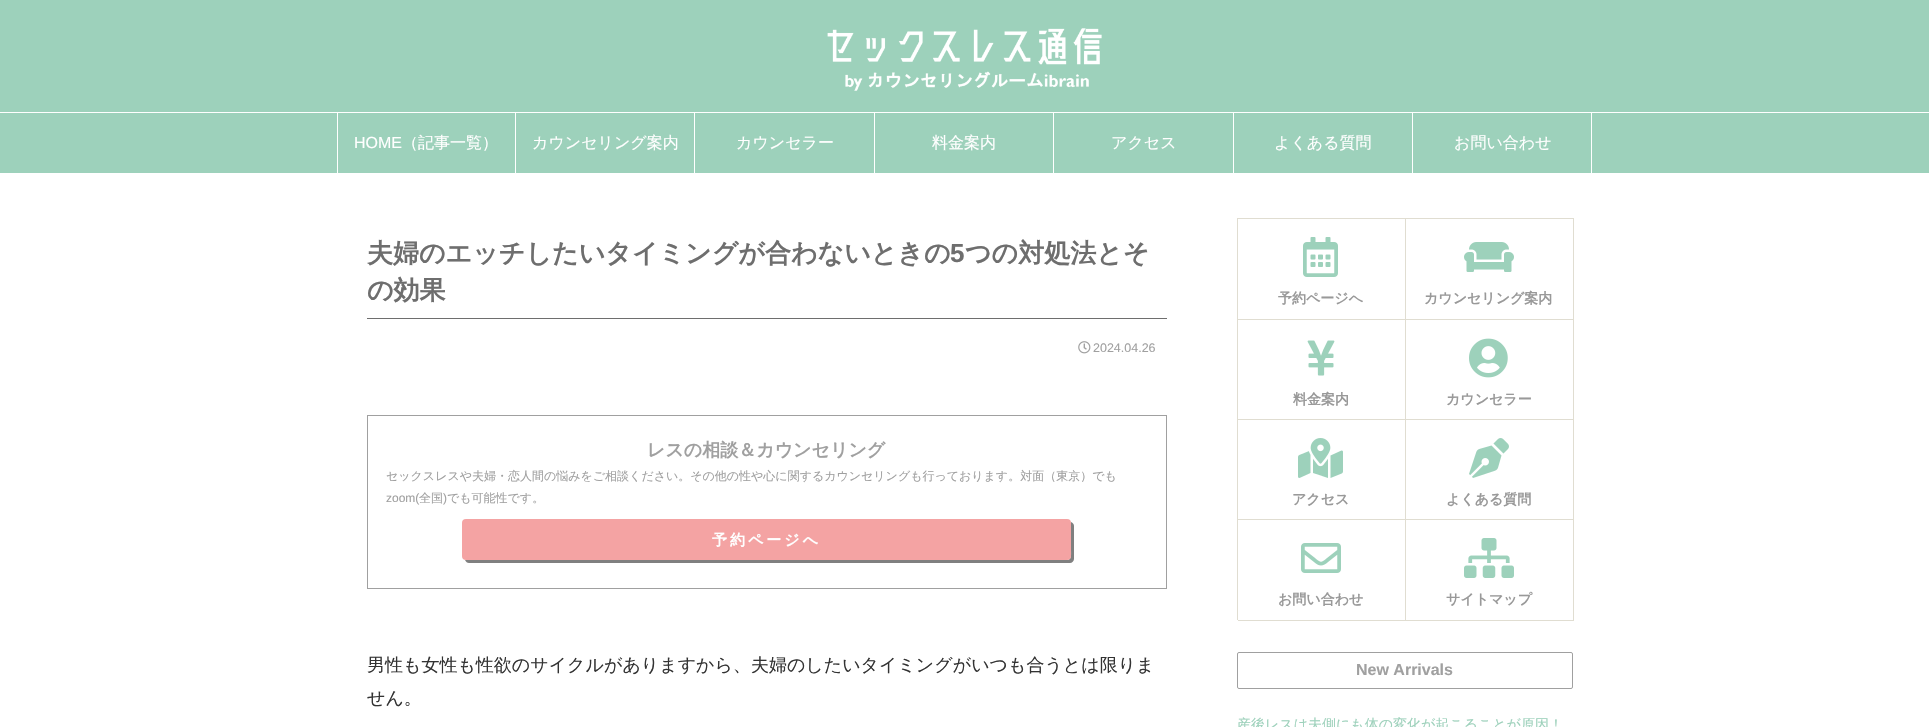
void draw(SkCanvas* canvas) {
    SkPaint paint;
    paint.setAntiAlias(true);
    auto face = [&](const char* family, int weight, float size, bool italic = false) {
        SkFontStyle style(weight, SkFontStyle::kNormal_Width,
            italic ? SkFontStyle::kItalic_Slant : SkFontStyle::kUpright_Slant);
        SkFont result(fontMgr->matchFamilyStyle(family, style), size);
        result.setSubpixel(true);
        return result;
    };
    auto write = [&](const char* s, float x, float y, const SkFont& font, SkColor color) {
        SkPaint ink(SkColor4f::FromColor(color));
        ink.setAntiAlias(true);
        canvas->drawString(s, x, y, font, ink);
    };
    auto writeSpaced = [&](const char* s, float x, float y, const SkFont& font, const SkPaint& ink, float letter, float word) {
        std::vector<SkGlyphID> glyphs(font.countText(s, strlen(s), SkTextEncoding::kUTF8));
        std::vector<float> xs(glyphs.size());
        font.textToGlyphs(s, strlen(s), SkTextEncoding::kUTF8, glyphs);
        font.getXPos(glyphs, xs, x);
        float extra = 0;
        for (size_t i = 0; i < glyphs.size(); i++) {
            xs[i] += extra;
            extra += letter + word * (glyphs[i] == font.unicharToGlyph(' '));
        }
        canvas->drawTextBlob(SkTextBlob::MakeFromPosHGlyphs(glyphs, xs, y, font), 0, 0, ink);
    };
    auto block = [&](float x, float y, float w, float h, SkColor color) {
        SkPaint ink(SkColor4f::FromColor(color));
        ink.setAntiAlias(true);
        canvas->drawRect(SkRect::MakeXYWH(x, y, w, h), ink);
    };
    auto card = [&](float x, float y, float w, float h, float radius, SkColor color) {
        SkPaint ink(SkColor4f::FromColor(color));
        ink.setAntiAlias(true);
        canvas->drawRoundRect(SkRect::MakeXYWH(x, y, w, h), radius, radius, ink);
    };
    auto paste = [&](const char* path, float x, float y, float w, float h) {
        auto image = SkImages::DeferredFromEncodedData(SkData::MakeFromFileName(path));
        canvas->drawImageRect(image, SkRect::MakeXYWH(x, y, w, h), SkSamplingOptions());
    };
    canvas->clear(SK_ColorWHITE);
    block(0, 0, 1929, 173, SkColorSetRGB(157, 209, 187));
    paste("pic1.png", 827, 28, 275, 63);
    block(0, 112, 1929, 1, SK_ColorWHITE);
    block(515, 113, 1, 60, SK_ColorWHITE);
    block(337, 113, 1, 60, SK_ColorWHITE);
    auto kFont1 = face("Liberation Sans", 400, 16);
    write("HOME", 354, 148, kFont1, SK_ColorWHITE);
    auto kFont2 = face("WenQuanYi Zen Hei", 500, 16);
    write("（記事一覧）", 402, 148, kFont2, SK_ColorWHITE);
    block(694, 113, 1, 60, SK_ColorWHITE);
    write("カウンセリング案内", 532, 148, kFont2, SK_ColorWHITE);
    block(874, 113, 1, 60, SK_ColorWHITE);
    write("カウンセラー", 736, 148, kFont2, SK_ColorWHITE);
    block(1053, 113, 1, 60, SK_ColorWHITE);
    write("料金案内", 932, 148, kFont2, SK_ColorWHITE);
    block(1233, 113, 1, 60, SK_ColorWHITE);
    write("アクセス", 1111, 148, kFont2, SK_ColorWHITE);
    block(1412, 113, 1, 60, SK_ColorWHITE);
    write("よくある質問", 1274, 148, kFont2, SK_ColorWHITE);
    block(1591, 113, 1, 60, SK_ColorWHITE);
    write("お問い合わせ", 1454, 148, kFont2, SK_ColorWHITE);
    block(367, 318, 800, 1, SkColorSetRGB(110, 110, 110));
    auto kFont3 = face("WenQuanYi Zen Hei", 700, 26);
    write("夫婦のエッチしたいタイミングが合わないときの", 367, 262, kFont3, SkColorSetRGB(110, 110, 110));
    auto kFont4 = face("Liberation Sans", 700, 26);
    write("5", 950, 262, kFont4, SkColorSetRGB(110, 110, 110));
    write("つの対処法とそ", 965, 262, kFont3, SkColorSetRGB(110, 110, 110));
    write("の効果", 367, 299, kFont3, SkColorSetRGB(110, 110, 110));
    paste("pic2.png", 1078, 341, 13, 13);
    auto kFont5 = face("Liberation Sans", 400, 12.5f);
    write("2024.04.26", 1093, 352, kFont5, SkColorSetRGB(160, 160, 160));
    paint.setStyle(SkPaint::kStroke_Style);
    paint.setStrokeWidth(1);
    paint.setColor(SkColorSetRGB(160, 160, 160));
    canvas->drawRect(SkRect::MakeXYWH(367.5f, 415.5f, 799, 173), paint);
    auto kFont6 = face("WenQuanYi Zen Hei", 700, 18);
    write("レスの相談＆カウンセリング", 647, 456, kFont6, SkColorSetRGB(160, 160, 160));
    auto kFont7 = face("WenQuanYi Zen Hei", 500, 12);
    write("セックスレスや夫婦・恋人間の悩みをご相談ください。その他の性や心に関するカウンセリングも行っております。対面（東京）でも", 386, 480, kFont7, SkColorSetRGB(160, 160, 160));
    auto kFont8 = face("Liberation Sans", 400, 12);
    write("zoom(", 386, 502, kFont8, SkColorSetRGB(160, 160, 160));
    write("全国", 419, 502, kFont7, SkColorSetRGB(160, 160, 160));
    write(")", 443, 502, kFont8, SkColorSetRGB(160, 160, 160));
    write("でも可能性です。", 447, 502, kFont7, SkColorSetRGB(160, 160, 160));
    paint.setStyle(SkPaint::kFill_Style);
    paint.setColor(SkColorSetRGB(128, 128, 128));
    canvas->drawPath(SkPathBuilder().moveTo(465, 560).cubicTo(466, 562, 467, 563, 469, 563).lineTo(1070, 563).cubicTo(1072, 563, 1074, 561, 1074, 559).lineTo(1074, 526).cubicTo(1074, 524, 1073, 523, 1071, 522).lineTo(1071, 550).cubicTo(1071, 554, 1072, 560, 1067, 560).close().detach(), paint);
    card(462, 519, 609, 41, 4, SkColorSetRGB(244, 163, 163));
    auto kFont9 = face("WenQuanYi Zen Hei", 700, 15);
    paint.setColor(SK_ColorWHITE);
    writeSpaced("予約ページへ", 712, 545, kFont9, paint, 3, 0);
    auto kFont10 = face("WenQuanYi Zen Hei", 500, 18);
    write("男性も女性も性欲のサイクルがありますから、夫婦のしたいタイミングがいつも合うとは限りま", 367, 671, kFont10, SkColorSetRGB(51, 51, 51));
    write("せん。", 367, 704, kFont10, SkColorSetRGB(51, 51, 51));
    canvas->save();
    canvas->clipRect(SkRect::MakeXYWH(1237, 218, 168, 101));
    paint.setColor(SkColorSetRGB(224, 221, 209));
    canvas->drawPath(SkPathBuilder(SkPathFillType::kEvenOdd).moveTo(1138, 119).lineTo(1504, 119).lineTo(1504, 418).lineTo(1138, 418).close().moveTo(1238, 219).lineTo(1406, 219).lineTo(1406, 320).lineTo(1238, 320).close().detach(), paint);
    canvas->restore();
    paste("pic3.png", 1303, 237, 35, 40);
    auto kFont11 = face("WenQuanYi Zen Hei", 700, 14);
    write("予約ページへ", 1278, 303, kFont11, SkColorSetRGB(153, 153, 153));
    block(1573, 218, 1, 1, SkColorSetRGB(224, 221, 209));
    canvas->drawPath(SkPathBuilder().moveTo(1406, 319).lineTo(1406, 320).lineTo(1574, 320).lineTo(1574, 219).lineTo(1573, 219).lineTo(1573, 319).close().detach(), paint);
    canvas->save();
    canvas->clipRect(SkRect::MakeXYWH(1405, 218, 168, 101));
    canvas->drawPath(SkPathBuilder(SkPathFillType::kEvenOdd).moveTo(1306, 119).lineTo(1672, 119).lineTo(1672, 418).lineTo(1306, 418).close().moveTo(1406, 219).lineTo(1574, 219).lineTo(1574, 320).lineTo(1406, 320).close().detach(), paint);
    canvas->restore();
    paste("pic4.png", 1464, 242, 50, 30);
    write("カウンセリング案内", 1424, 303, kFont11, SkColorSetRGB(153, 153, 153));
    canvas->save();
    canvas->clipRect(SkRect::MakeXYWH(1237, 319, 168, 100));
    canvas->drawPath(SkPathBuilder(SkPathFillType::kEvenOdd).moveTo(1138, 220).lineTo(1504, 220).lineTo(1504, 518).lineTo(1138, 518).close().moveTo(1238, 320).lineTo(1406, 320).lineTo(1406, 420).lineTo(1238, 420).close().detach(), paint);
    canvas->restore();
    paste("pic5.png", 1307, 340, 28, 36);
    write("料金案内", 1293, 404, kFont11, SkColorSetRGB(153, 153, 153));
    canvas->drawPath(SkPathBuilder().moveTo(1406, 419).lineTo(1406, 420).lineTo(1574, 420).lineTo(1574, 320).lineTo(1573, 320).lineTo(1573, 419).close().detach(), paint);
    canvas->save();
    canvas->clipRect(SkRect::MakeXYWH(1405, 319, 168, 100));
    canvas->drawPath(SkPathBuilder(SkPathFillType::kEvenOdd).moveTo(1306, 220).lineTo(1672, 220).lineTo(1672, 518).lineTo(1306, 518).close().moveTo(1406, 320).lineTo(1574, 320).lineTo(1574, 420).lineTo(1406, 420).close().detach(), paint);
    canvas->restore();
    paste("pic6.png", 1469, 338, 39, 40);
    write("カウンセラー", 1446, 404, kFont11, SkColorSetRGB(153, 153, 153));
    canvas->save();
    canvas->clipRect(SkRect::MakeXYWH(1237, 419, 168, 100));
    canvas->drawPath(SkPathBuilder(SkPathFillType::kEvenOdd).moveTo(1138, 320).lineTo(1504, 320).lineTo(1504, 618).lineTo(1138, 618).close().moveTo(1238, 420).lineTo(1406, 420).lineTo(1406, 520).lineTo(1238, 520).close().detach(), paint);
    canvas->restore();
    paste("pic7.png", 1298, 438, 45, 40);
    write("アクセス", 1292, 504, kFont11, SkColorSetRGB(153, 153, 153));
    canvas->drawPath(SkPathBuilder().moveTo(1406, 519).lineTo(1406, 520).lineTo(1574, 520).lineTo(1574, 420).lineTo(1573, 420).lineTo(1573, 519).close().detach(), paint);
    canvas->save();
    canvas->clipRect(SkRect::MakeXYWH(1405, 419, 168, 100));
    canvas->drawPath(SkPathBuilder(SkPathFillType::kEvenOdd).moveTo(1306, 320).lineTo(1672, 320).lineTo(1672, 618).lineTo(1306, 618).close().moveTo(1406, 420).lineTo(1574, 420).lineTo(1574, 520).lineTo(1406, 520).close().detach(), paint);
    canvas->restore();
    paste("pic8.png", 1469, 438, 40, 40);
    write("よくある質問", 1446, 504, kFont11, SkColorSetRGB(153, 153, 153));
    canvas->drawPath(SkPathBuilder().moveTo(1238, 620).lineTo(1238, 621).lineTo(1406, 621).lineTo(1406, 520).lineTo(1405, 520).lineTo(1405, 620).close().detach(), paint);
    canvas->save();
    canvas->clipRect(SkRect::MakeXYWH(1237, 519, 168, 101));
    canvas->drawPath(SkPathBuilder(SkPathFillType::kEvenOdd).moveTo(1138, 420).lineTo(1504, 420).lineTo(1504, 719).lineTo(1138, 719).close().moveTo(1238, 520).lineTo(1406, 520).lineTo(1406, 621).lineTo(1238, 621).close().detach(), paint);
    canvas->restore();
    paste("pic9.png", 1301, 543, 40, 30);
    write("お問い合わせ", 1278, 604, kFont11, SkColorSetRGB(153, 153, 153));
    canvas->drawPath(SkPathBuilder().moveTo(1406, 620).lineTo(1406, 621).lineTo(1574, 621).lineTo(1574, 520).lineTo(1573, 520).lineTo(1573, 620).close().detach(), paint);
    canvas->save();
    canvas->clipRect(SkRect::MakeXYWH(1405, 519, 168, 101));
    canvas->drawPath(SkPathBuilder(SkPathFillType::kEvenOdd).moveTo(1306, 420).lineTo(1672, 420).lineTo(1672, 719).lineTo(1306, 719).close().moveTo(1406, 520).lineTo(1574, 520).lineTo(1574, 621).lineTo(1406, 621).close().detach(), paint);
    canvas->restore();
    paste("pic10.png", 1464, 538, 50, 40);
    write("サイトマップ", 1446, 604, kFont11, SkColorSetRGB(153, 153, 153));
    paint.setStyle(SkPaint::kStroke_Style);
    paint.setColor(SkColorSetRGB(160, 160, 160));
    canvas->drawRoundRect(SkRect::MakeXYWH(1237.5f, 652.5f, 335, 36), 1.5f, 1.5f, paint);
    auto kFont12 = face("Liberation Sans", 700, 16);
    write("New Arrivals", 1356, 675, kFont12, SkColorSetRGB(160, 160, 160));
    auto kFont13 = face("WenQuanYi Zen Hei", 500, 14);
    write("産後レスは夫側にも体の変化が起こることが原因！", 1237, 729, kFont13, SkColorSetRGB(157, 209, 187));
}
